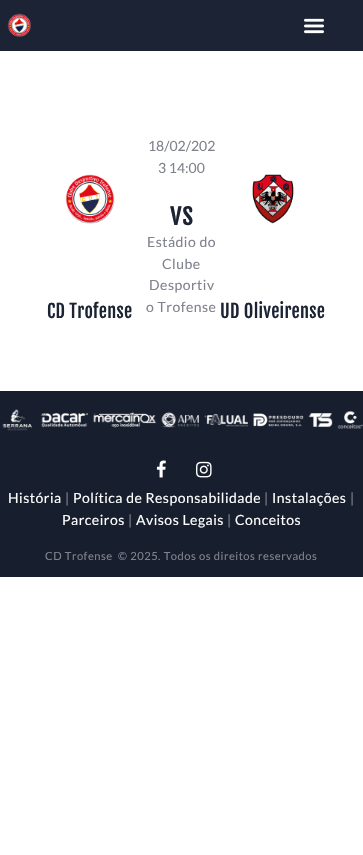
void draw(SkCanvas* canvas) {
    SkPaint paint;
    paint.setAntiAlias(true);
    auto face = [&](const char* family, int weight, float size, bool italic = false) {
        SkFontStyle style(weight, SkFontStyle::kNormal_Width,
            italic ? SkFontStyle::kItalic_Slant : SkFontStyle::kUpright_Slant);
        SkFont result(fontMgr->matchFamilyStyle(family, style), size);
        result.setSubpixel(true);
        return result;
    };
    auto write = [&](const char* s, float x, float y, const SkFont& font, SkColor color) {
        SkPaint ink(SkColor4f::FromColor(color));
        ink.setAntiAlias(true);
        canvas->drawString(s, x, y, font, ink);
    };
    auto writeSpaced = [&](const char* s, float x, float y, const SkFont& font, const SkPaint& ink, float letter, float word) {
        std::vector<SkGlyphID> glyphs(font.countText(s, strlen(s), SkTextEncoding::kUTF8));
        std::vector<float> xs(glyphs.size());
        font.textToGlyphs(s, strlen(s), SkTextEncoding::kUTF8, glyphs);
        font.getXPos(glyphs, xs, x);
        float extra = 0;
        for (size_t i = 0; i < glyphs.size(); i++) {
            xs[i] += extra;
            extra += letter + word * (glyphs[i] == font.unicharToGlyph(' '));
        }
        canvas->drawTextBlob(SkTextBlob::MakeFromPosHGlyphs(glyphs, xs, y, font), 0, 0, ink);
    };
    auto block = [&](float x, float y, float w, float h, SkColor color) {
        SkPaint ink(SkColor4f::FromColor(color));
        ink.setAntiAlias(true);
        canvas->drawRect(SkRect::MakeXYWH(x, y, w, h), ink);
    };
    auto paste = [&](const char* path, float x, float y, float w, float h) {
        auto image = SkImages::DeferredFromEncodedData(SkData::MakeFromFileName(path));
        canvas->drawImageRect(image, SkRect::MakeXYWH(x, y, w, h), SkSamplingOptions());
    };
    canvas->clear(SK_ColorWHITE);
    block(0, 0, 363, 51, SkColorSetRGB(28, 35, 52));
    paste("pic1.png", 7, 13, 24, 24);
    paste("pic2.png", 304, 18, 20, 16);
    paste("pic3.png", 65, 174, 50, 50);
    auto kFont1 = face("Fjalla One", 400, 18.25f);
    paint.setColor(SkColorSetRGB(28, 35, 52));
    writeSpaced("CD Trofense", 47, 318, kFont1, paint, 0.25f, 0);
    auto kFont2 = face("Lato", 400, 14);
    write("18/02/202", 148, 151, kFont2, SkColorSetRGB(128, 131, 141));
    write("3 14:00", 158, 173, kFont2, SkColorSetRGB(128, 131, 141));
    auto kFont3 = face("Fjalla One", 400, 28);
    writeSpaced("vs", 170, 225, kFont3, paint, 0.5f, 0);
    paint.setColor(SkColorSetRGB(128, 131, 141));
    writeSpaced("Estádio do", 147, 247, kFont2, paint, 0.5f, 0);
    writeSpaced("Clube", 162, 269, kFont2, paint, 0.5f, 0);
    writeSpaced("Desportiv", 149, 290, kFont2, paint, 0.5f, 0);
    writeSpaced("o Trofense", 146, 312, kFont2, paint, 0.5f, 0);
    paste("pic4.png", 252, 174, 42, 50);
    paint.setColor(SkColorSetRGB(28, 35, 52));
    writeSpaced("UD Oliveirense", 220, 318, kFont1, paint, 0.25f, 0);
    block(0, 391, 363, 186, SkColorSetRGB(23, 30, 45));
    paste("pic5.png", 2, 409, 361, 22);
    paste("pic6.png", 156, 460, 10, 18);
    paste("pic7.png", 196, 461, 16, 17);
    paint.setColor(SK_ColorWHITE);
    writeSpaced("História", 8, 503, kFont2, paint, 0.5f, 0);
    paint.setColor(SkColorSetRGB(128, 131, 141));
    writeSpaced("|", 65, 503, kFont2, paint, 0.5f, 0);
    paint.setColor(SK_ColorWHITE);
    writeSpaced("Política de Responsabilidade", 73, 503, kFont2, paint, 0.5f, 0);
    paint.setColor(SkColorSetRGB(128, 131, 141));
    writeSpaced("|", 264, 503, kFont2, paint, 0.5f, 0);
    paint.setColor(SK_ColorWHITE);
    writeSpaced("Instalações", 272, 503, kFont2, paint, 0.5f, 0);
    paint.setColor(SkColorSetRGB(128, 131, 141));
    writeSpaced("|", 350, 503, kFont2, paint, 0.5f, 0);
    paint.setColor(SK_ColorWHITE);
    writeSpaced("Parceiros", 62, 525, kFont2, paint, 0.5f, 0);
    paint.setColor(SkColorSetRGB(128, 131, 141));
    writeSpaced("|", 128, 525, kFont2, paint, 0.5f, 0);
    paint.setColor(SK_ColorWHITE);
    writeSpaced("Avisos Legais", 136, 525, kFont2, paint, 0.5f, 0);
    paint.setColor(SkColorSetRGB(128, 131, 141));
    writeSpaced("|", 227, 525, kFont2, paint, 0.5f, 0);
    paint.setColor(SK_ColorWHITE);
    writeSpaced("Conceitos", 235, 525, kFont2, paint, 0.5f, 0);
    auto kFont4 = face("Lato", 400, 11.2f);
    paint.setColor(SkColorSetRGB(128, 131, 141));
    writeSpaced("CD Trofense  © 2025. Todos os direitos reservados", 45, 560, kFont4, paint, 0.5f, 0);
}
